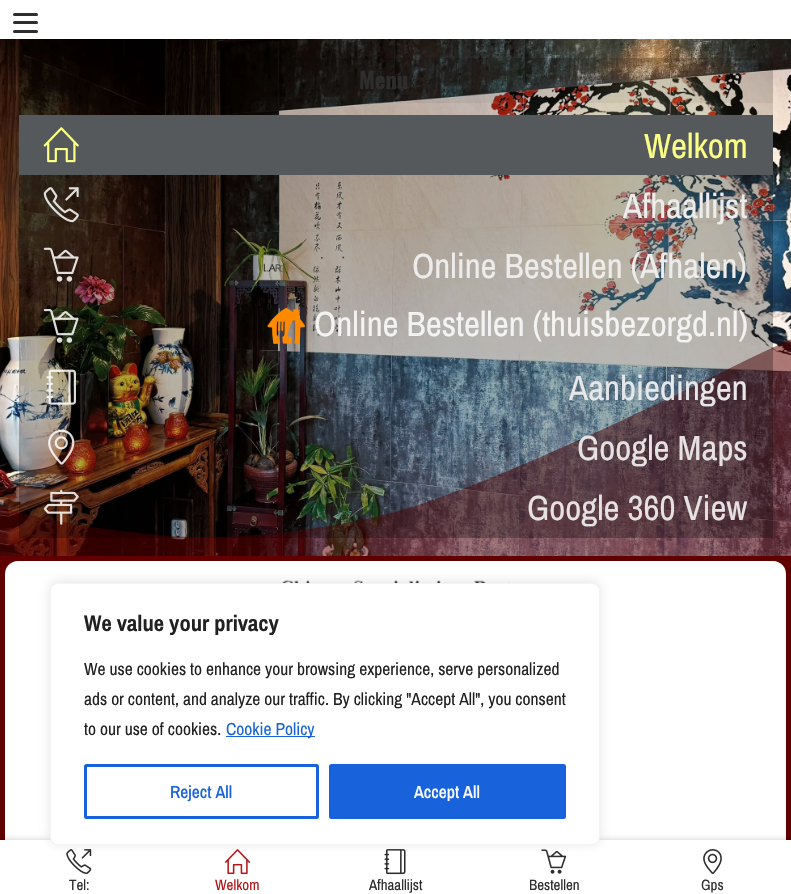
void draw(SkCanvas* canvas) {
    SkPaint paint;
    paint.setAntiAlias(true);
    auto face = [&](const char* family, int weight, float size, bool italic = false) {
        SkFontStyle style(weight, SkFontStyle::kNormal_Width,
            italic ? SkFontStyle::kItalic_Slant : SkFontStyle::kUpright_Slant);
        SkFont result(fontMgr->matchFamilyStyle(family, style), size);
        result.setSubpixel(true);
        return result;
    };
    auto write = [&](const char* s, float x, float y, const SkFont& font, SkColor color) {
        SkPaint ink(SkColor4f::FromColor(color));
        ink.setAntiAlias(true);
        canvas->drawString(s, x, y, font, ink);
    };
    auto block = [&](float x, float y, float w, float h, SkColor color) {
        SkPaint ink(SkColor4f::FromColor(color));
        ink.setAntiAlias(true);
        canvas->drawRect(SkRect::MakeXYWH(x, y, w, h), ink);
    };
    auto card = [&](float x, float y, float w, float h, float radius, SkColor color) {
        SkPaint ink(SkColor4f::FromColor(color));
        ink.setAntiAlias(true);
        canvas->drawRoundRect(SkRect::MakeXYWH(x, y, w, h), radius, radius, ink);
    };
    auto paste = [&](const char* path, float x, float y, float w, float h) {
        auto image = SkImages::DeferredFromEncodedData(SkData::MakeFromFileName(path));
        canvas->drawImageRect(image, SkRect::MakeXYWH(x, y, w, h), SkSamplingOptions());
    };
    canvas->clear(SK_ColorWHITE);
    paste("pic1.png", 0, 39, 791, 517);
    paint.setColor(SkColorSetARGB(130, 96, 0, 0));
    canvas->drawPath(SkPathBuilder().moveTo(149, 534).cubicTo(221, 543, 312, 532, 388, 514).cubicTo(463, 495, 613, 426, 706, 380).cubicTo(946, 259, 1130, 213, 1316, 193).cubicTo(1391, 186, 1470, 180, 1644, 203).cubicTo(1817, 225, 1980, 299, 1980, 299).lineTo(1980, 558).lineTo(-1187, 558).lineTo(-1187, 444).cubicTo(-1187, 444, -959, 322, -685, 330).cubicTo(-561, 333, -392, 355, -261, 414).cubicTo(-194, 444, -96, 482, -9, 505).cubicTo(77, 528, 116, 530, 149, 534).close().detach(), paint);
    block(19, 58, 754, 480, SkColorSetARGB(38, 2, 2, 1));
    block(23, 58, 750, 45, SkColorSetARGB(13, 0, 0, 0));
    paint.setColor(SkColorSetARGB(26, 0, 0, 0));
    paint.setMaskFilter(SkMaskFilter::MakeBlur(kNormal_SkBlurStyle, 12.5f));
    canvas->drawRect(SkRect::MakeXYWH(0, 0, 791, 39), paint);
    paint.setMaskFilter(nullptr);
    block(0, 0, 791, 39, SK_ColorWHITE);
    card(13, 13, 25, 3, 1.5f, SkColorSetRGB(46, 45, 45));
    card(13, 21, 25, 3, 1.5f, SkColorSetRGB(46, 45, 45));
    card(13, 30, 25, 3, 1.5f, SkColorSetRGB(46, 45, 45));
    auto kFont1 = face("Oswald", 700, 22.5f);
    write("Menu", 359, 89, kFont1, SkColorSetRGB(46, 45, 45));
    block(19, 175, 754, 363, SkColorSetARGB(38, 2, 2, 1));
    block(19, 115, 754, 60, SkColorSetRGB(85, 89, 92));
    paste("pic2.png", 43, 127, 36, 36);
    auto kFont2 = face("Archivo Narrow", 400, 35);
    write("Welkom", 644, 158, kFont2, SkColorSetRGB(251, 255, 134));
    paste("pic3.png", 43, 187, 36, 36);
    write("Afhaallijst", 623, 218, kFont2, SkColorSetRGB(237, 236, 235));
    paste("pic4.png", 43, 247, 36, 35);
    write("Online Bestellen (Afhalen)", 412, 278, kFont2, SkColorSetRGB(237, 236, 235));
    paste("pic5.png", 43, 309, 36, 34);
    paste("pic6.png", 267, 307, 38, 38);
    write("Online Bestellen (thuisbezorgd.nl)", 314, 336, kFont2, SkColorSetRGB(244, 243, 243));
    paste("pic7.png", 46, 369, 30, 36);
    write("Aanbiedingen", 569, 400, kFont2, SkColorSetRGB(230, 231, 233));
    paste("pic8.png", 48, 429, 27, 36);
    write("Google Maps", 577, 460, kFont2, SkColorSetRGB(230, 226, 227));
    paste("pic9.png", 43, 489, 36, 36);
    write("Google 360 View", 527, 520, kFont2, SkColorSetRGB(230, 226, 227));
    block(0, 556, 791, 284, SkColorSetRGB(96, 0, 0));
    card(5, 561, 781, 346, 13, SK_ColorWHITE);
    paste("pic10.png", 282, 580, 228, 3);
    paint.setColor(SkColorSetARGB(51, 0, 0, 0));
    paint.setMaskFilter(SkMaskFilter::MakeBlur(kNormal_SkBlurStyle, 3));
    canvas->drawRect(SkRect::MakeXYWH(0, 840, 791, 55), paint);
    paint.setMaskFilter(nullptr);
    block(0, 840, 791, 54, SK_ColorWHITE);
    paste("pic11.png", 66, 849, 26, 26);
    paste("pic12.png", 225, 849, 25, 26);
    paste("pic13.png", 384, 849, 22, 26);
    paste("pic14.png", 541, 849, 26, 25);
    paint.setColor(SkColorSetARGB(77, 172, 171, 171));
    paint.setMaskFilter(SkMaskFilter::MakeBlur(kNormal_SkBlurStyle, 6));
    canvas->drawRoundRect(SkRect::MakeXYWH(50, 581, 550, 263), 8, 8, paint);
    paint.setMaskFilter(nullptr);
    paint.setColor(SK_ColorWHITE);
    canvas->drawRoundRect(SkRect::MakeXYWH(50.5f, 583.5f, 549, 261), 7.5f, 7.5f, paint);
    paint.setStyle(SkPaint::kStroke_Style);
    paint.setStrokeWidth(1);
    paint.setColor(SkColorSetRGB(244, 244, 244));
    canvas->drawRoundRect(SkRect::MakeXYWH(50.5f, 583.5f, 549, 261), 7.5f, 7.5f, paint);
    auto kFont3 = face("Archivo Narrow", 700, 22.5f);
    write("We value your privacy", 84, 631, kFont3, SkColorSetRGB(33, 33, 33));
    auto kFont4 = face("Archivo Narrow", 400, 17.5f);
    write("We use cookies to enhance your browsing experience, serve personalized", 84, 675, kFont4, SkColorSetRGB(33, 33, 33));
    write("ads or content, and analyze our traffic. By clicking \"Accept All\", you consent", 84, 705, kFont4, SkColorSetRGB(33, 33, 33));
    write("to our use of cookies.", 84, 735, kFont4, SkColorSetRGB(33, 33, 33));
    block(226, 736, 89, 1, SkColorSetRGB(24, 99, 220));
    write("Cookie Policy", 226, 735, kFont4, SkColorSetRGB(24, 99, 220));
    paint.setStrokeWidth(3);
    paint.setColor(SkColorSetRGB(24, 99, 220));
    canvas->drawRoundRect(SkRect::MakeXYWH(85.5f, 765.5f, 232, 52), 1, 1, paint);
    auto kFont5 = face("Archivo Narrow", 500, 17.5f);
    write("Reject All", 170, 798, kFont5, SkColorSetRGB(24, 99, 220));
    paint.setStyle(SkPaint::kFill_Style);
    canvas->drawRoundRect(SkRect::MakeXYWH(330.5f, 765.5f, 234, 52), 1, 1, paint);
    paint.setStyle(SkPaint::kStroke_Style);
    canvas->drawRoundRect(SkRect::MakeXYWH(330.5f, 765.5f, 234, 52), 1, 1, paint);
    write("Accept All", 414, 798, kFont5, SK_ColorWHITE);
    auto kFont6 = face("Archivo Narrow", 400, 15);
    write("Tel:", 69, 890, kFont6, SkColorSetRGB(46, 45, 45));
    write("Welkom", 215, 890, kFont6, SkColorSetRGB(178, 25, 28));
    write("Afhaallijst", 369, 890, kFont6, SkColorSetRGB(46, 45, 45));
    write("Bestellen", 529, 890, kFont6, SkColorSetRGB(46, 45, 45));
    paste("pic15.png", 703, 849, 19, 25);
    write("Gps", 701, 890, kFont6, SkColorSetRGB(46, 45, 45));
}
